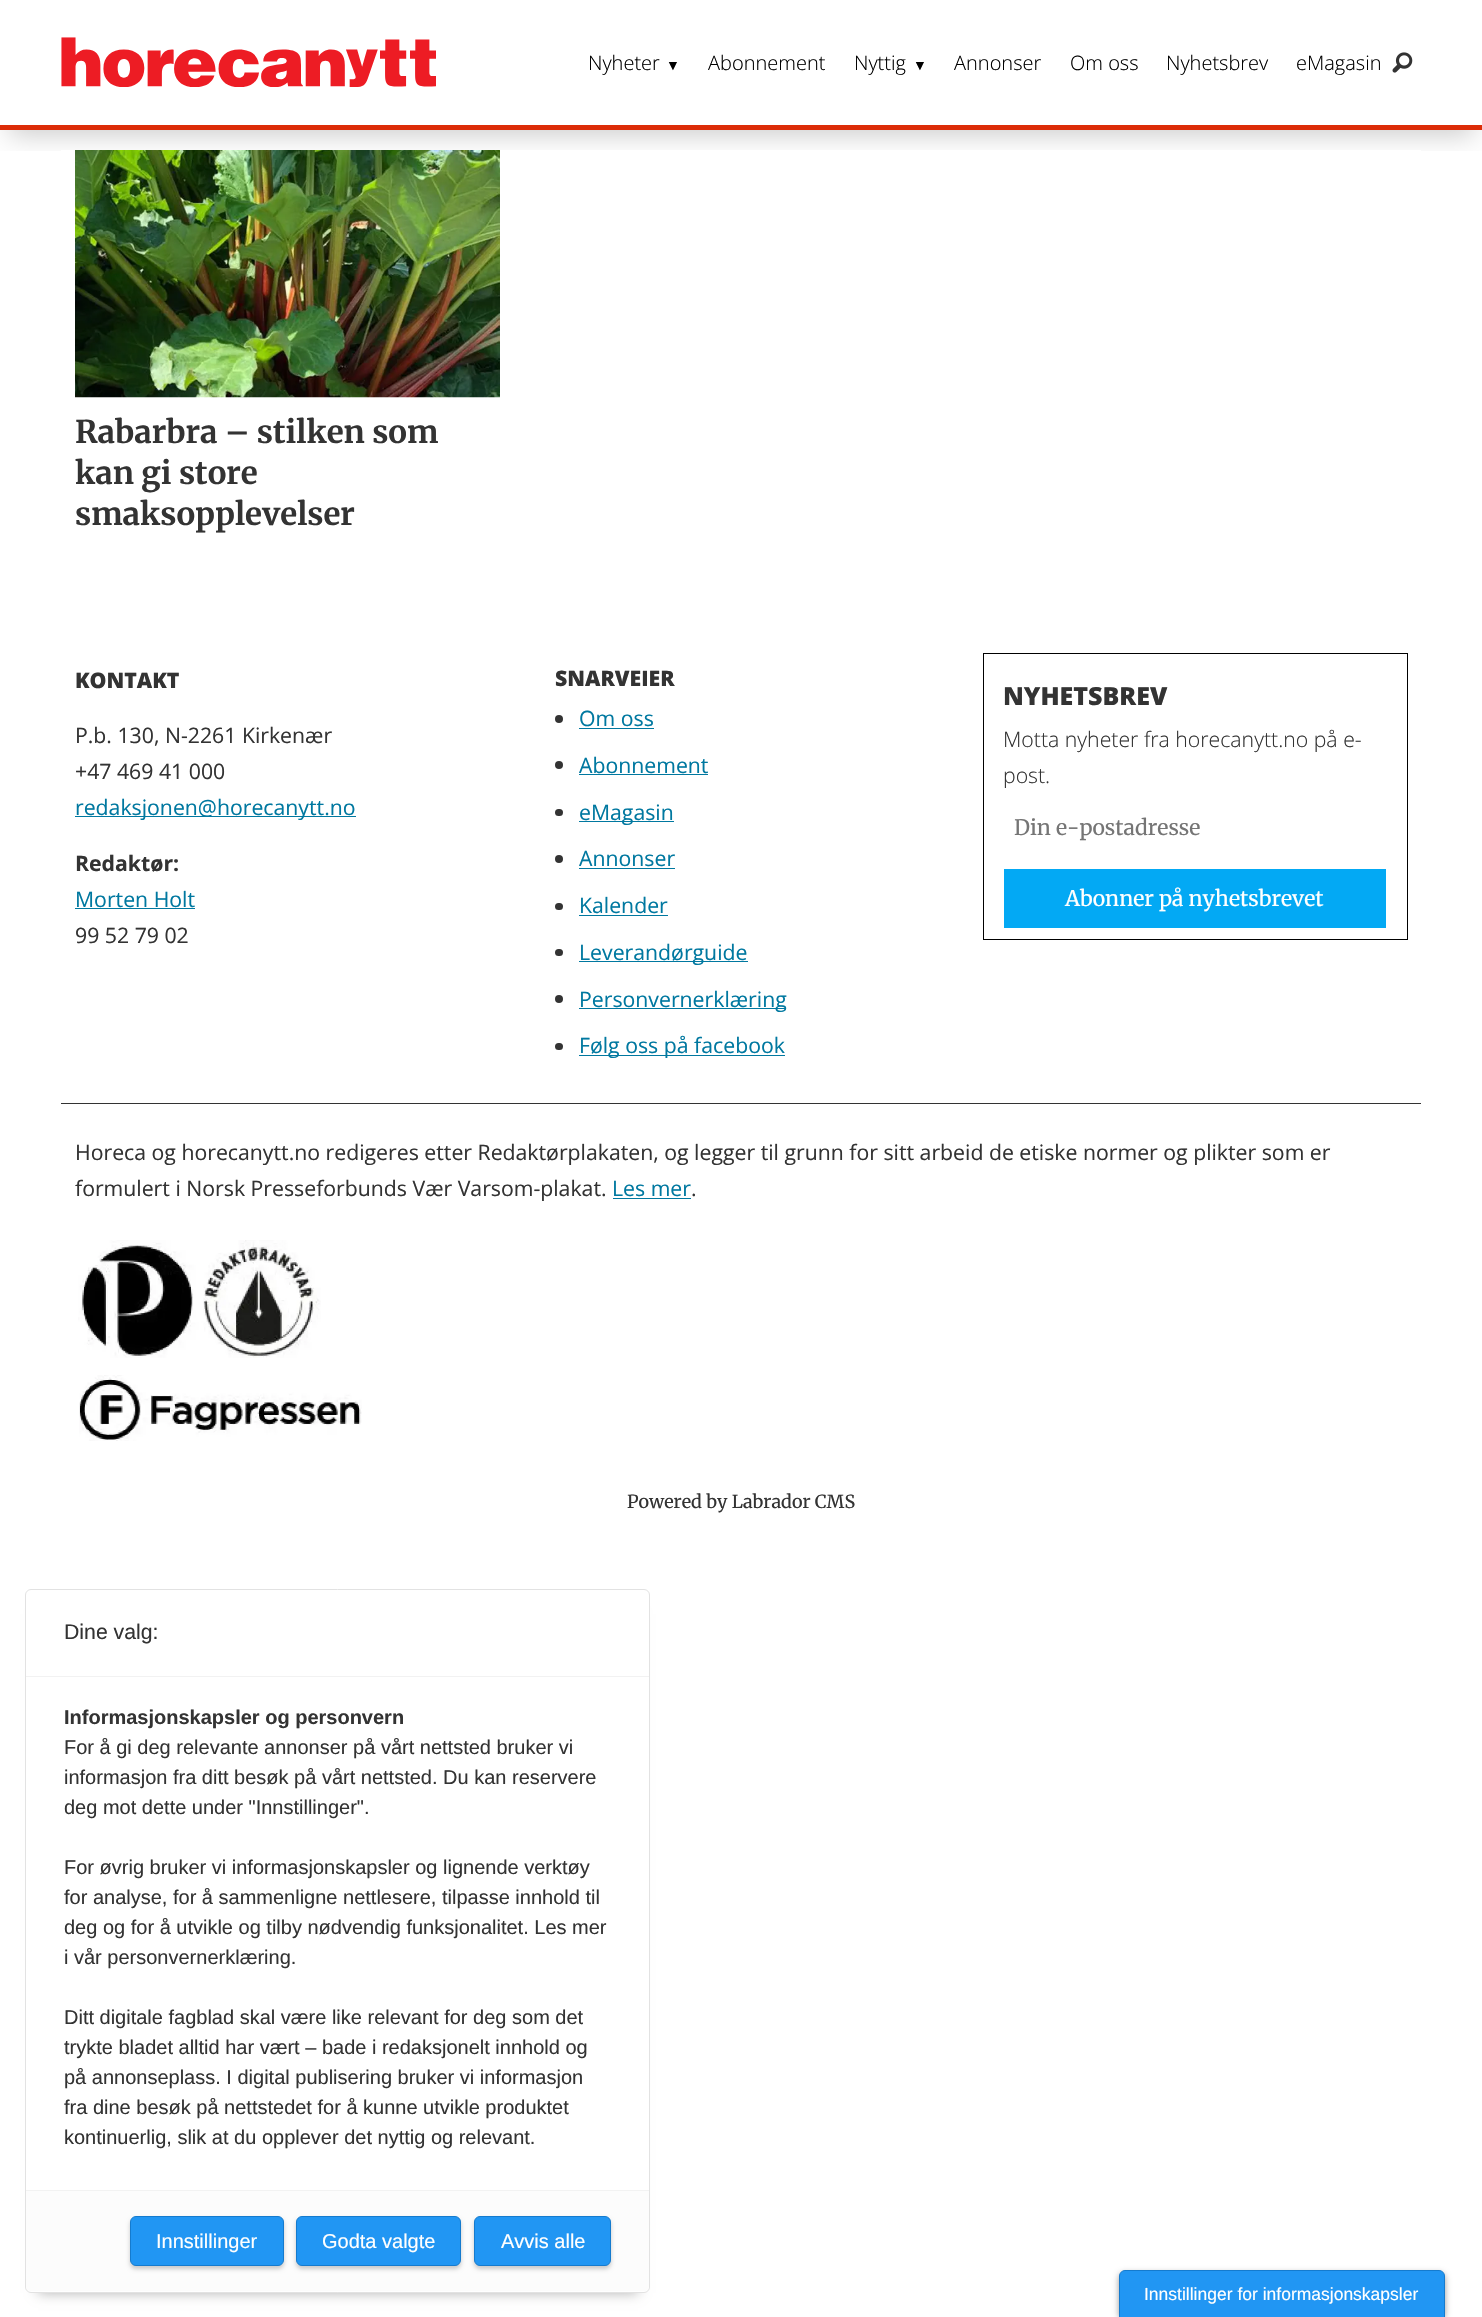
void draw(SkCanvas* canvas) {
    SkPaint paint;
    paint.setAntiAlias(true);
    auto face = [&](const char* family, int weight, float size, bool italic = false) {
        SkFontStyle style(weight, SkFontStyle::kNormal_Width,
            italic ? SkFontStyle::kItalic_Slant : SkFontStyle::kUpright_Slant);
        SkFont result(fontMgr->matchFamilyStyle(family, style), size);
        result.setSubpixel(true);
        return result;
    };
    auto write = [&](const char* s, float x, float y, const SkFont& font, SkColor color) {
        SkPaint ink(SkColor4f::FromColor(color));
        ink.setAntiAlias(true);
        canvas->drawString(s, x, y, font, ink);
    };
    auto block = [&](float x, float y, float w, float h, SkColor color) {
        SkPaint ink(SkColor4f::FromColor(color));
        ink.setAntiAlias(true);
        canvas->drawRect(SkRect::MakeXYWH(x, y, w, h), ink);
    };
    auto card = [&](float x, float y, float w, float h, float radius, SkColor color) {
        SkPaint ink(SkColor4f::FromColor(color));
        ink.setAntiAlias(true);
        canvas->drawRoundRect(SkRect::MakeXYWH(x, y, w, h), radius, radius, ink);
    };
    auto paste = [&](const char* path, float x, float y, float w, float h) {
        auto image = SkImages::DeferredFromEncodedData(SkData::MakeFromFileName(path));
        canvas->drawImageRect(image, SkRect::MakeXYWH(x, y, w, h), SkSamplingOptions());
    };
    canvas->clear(SK_ColorWHITE);
    canvas->save();
    canvas->clipRect(SkRect::MakeXYWH(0, 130, 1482, 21));
    paint.setColor(SkColorSetARGB(51, 0, 0, 0));
    paint.setMaskFilter(SkMaskFilter::MakeBlur(kNormal_SkBlurStyle, 12.5f));
    canvas->drawRect(SkRect::MakeXYWH(9, 23, 1465, 112), paint);
    paint.setMaskFilter(nullptr);
    canvas->restore();
    block(0, 125, 1482, 5, SkColorSetRGB(220, 44, 7));
    paste("pic1.png", 61, 37, 375, 50);
    auto kFont1 = face("Open Sans", 300, 20);
    write("Nyheter", 588, 70, kFont1, SK_ColorBLACK);
    auto kFont2 = face("Liberation Serif", 400, 14);
    write("▼", 666, 70, kFont2, SK_ColorBLACK);
    write("Abonnement", 708, 70, kFont1, SK_ColorBLACK);
    write("Nyttig", 854, 70, kFont1, SK_ColorBLACK);
    write("▼", 913, 70, kFont2, SK_ColorBLACK);
    write("Annonser", 954, 70, kFont1, SK_ColorBLACK);
    write("Om oss", 1070, 70, kFont1, SK_ColorBLACK);
    write("Nyhetsbrev", 1166, 70, kFont1, SK_ColorBLACK);
    write("eMagasin", 1296, 70, kFont1, SK_ColorBLACK);
    paste("pic2.png", 1392, 52, 21, 21);
    block(61, 150, 1360, 6, SK_ColorWHITE);
    paste("pic3.png", 75, 150, 425, 248);
    auto kFont3 = face("Merriweather", 700, 31.25f);
    write("Rabarbra – stilken som", 75, 443, kFont3, SkColorSetRGB(51, 51, 51));
    write("kan gi store", 75, 484, kFont3, SkColorSetRGB(51, 51, 51));
    write("smaksopplevelser", 75, 525, kFont3, SkColorSetRGB(51, 51, 51));
    auto kFont4 = face("Open Sans", 800, 21.25f);
    write("KONTAKT", 75, 688, kFont4, SkColorSetRGB(51, 51, 51));
    auto kFont5 = face("Open Sans", 400, 21.25f);
    write("P.b. 130, N-2261 Kirkenær", 75, 743, kFont5, SkColorSetRGB(51, 51, 51));
    write("+47 469 41 000", 75, 779, kFont5, SkColorSetRGB(51, 51, 51));
    block(75, 816, 281, 1, SkColorSetRGB(0, 120, 160));
    write("redaksjonen@horecanytt.no", 75, 815, kFont5, SkColorSetRGB(0, 120, 160));
    auto kFont6 = face("Open Sans", 700, 21.25f);
    write("Redaktør:", 75, 871, kFont6, SkColorSetRGB(51, 51, 51));
    write("Morten Holt", 75, 907, kFont5, SkColorSetRGB(0, 120, 160));
    block(75, 908, 120, 1, SkColorSetRGB(0, 120, 160));
    write("99 52 79 02", 75, 943, kFont5, SkColorSetRGB(51, 51, 51));
    write("SNARVEIER", 555, 686, kFont4, SkColorSetRGB(51, 51, 51));
    paint.setColor(SkColorSetRGB(51, 51, 51));
    canvas->drawCircle(559, 719, 4, paint);
    write("Om oss", 579, 726, kFont5, SkColorSetRGB(0, 120, 160));
    block(579, 728, 75, 1, SkColorSetRGB(0, 120, 160));
    canvas->drawCircle(559, 765, 4, paint);
    write("Abonnement", 579, 773, kFont5, SkColorSetRGB(0, 120, 160));
    block(579, 774, 129, 1, SkColorSetRGB(0, 120, 160));
    card(555, 809, 8, 7, 3.5f, SkColorSetRGB(51, 51, 51));
    block(579, 821, 95, 1, SkColorSetRGB(0, 120, 160));
    write("eMagasin", 579, 820, kFont5, SkColorSetRGB(0, 120, 160));
    canvas->drawCircle(559, 859, 4, paint);
    write("Annonser", 579, 866, kFont5, SkColorSetRGB(0, 120, 160));
    block(579, 868, 96, 1, SkColorSetRGB(0, 120, 160));
    card(555, 903, 8, 7, 3.5f, SkColorSetRGB(51, 51, 51));
    write("Kalender", 579, 913, kFont5, SkColorSetRGB(0, 120, 160));
    block(579, 915, 89, 1, SkColorSetRGB(0, 120, 160));
    card(555, 949, 8, 7, 3.5f, SkColorSetRGB(51, 51, 51));
    block(579, 961, 169, 1, SkColorSetRGB(0, 120, 160));
    write("Leverandørguide", 579, 960, kFont5, SkColorSetRGB(0, 120, 160));
    canvas->drawCircle(559, 999, 4, paint);
    block(579, 1008, 207, 1, SkColorSetRGB(0, 120, 160));
    write("Personvernerklæring", 579, 1007, kFont5, SkColorSetRGB(0, 120, 160));
    card(555, 1043, 8, 7, 3.5f, SkColorSetRGB(51, 51, 51));
    block(579, 1055, 206, 1, SkColorSetRGB(0, 120, 160));
    write("Følg oss på facebook", 579, 1053, kFont5, SkColorSetRGB(0, 120, 160));
    paint.setStyle(SkPaint::kStroke_Style);
    paint.setStrokeWidth(1);
    paint.setColor(SK_ColorBLACK);
    canvas->drawRect(SkRect::MakeXYWH(983.5f, 653.5f, 424, 286), paint);
    auto kFont7 = face("Open Sans", 800, 25);
    write("NYHETSBREV", 1003, 705, kFont7, SkColorSetRGB(51, 51, 51));
    auto kFont8 = face("Open Sans", 300, 21.25f);
    write("Motta nyheter fra horecanytt.no på e-", 1003, 747, kFont8, SkColorSetRGB(51, 51, 51));
    write("post.", 1003, 783, kFont8, SkColorSetRGB(51, 51, 51));
    auto kFont9 = face("Merriweather", 400, 21.25f);
    write("Din e-postadresse", 1014, 835, kFont9, SkColorSetRGB(117, 117, 117));
    block(1004, 869, 382, 59, SkColorSetRGB(3, 169, 244));
    write("Abonner på nyhetsbrevet", 1065, 906, kFont9, SK_ColorWHITE);
    block(61, 1103, 1360, 1, SkColorSetRGB(51, 51, 51));
    write("Horeca og horecanytt.no redigeres etter Redaktørplakaten, og legger til grunn for sitt arbeid de etiske normer og plikter som er", 75, 1160, kFont5, SkColorSetRGB(51, 51, 51));
    write("formulert i Norsk Presseforbunds Vær Varsom-plakat.", 75, 1196, kFont5, SkColorSetRGB(51, 51, 51));
    write("Les mer", 612, 1196, kFont5, SkColorSetRGB(0, 120, 160));
    block(613, 1198, 78, 1, SkColorSetRGB(0, 120, 160));
    write(".", 691, 1196, kFont5, SkColorSetRGB(51, 51, 51));
    paste("pic4.png", 78, 1240, 243, 118);
    paste("pic5.png", 79, 1375, 283, 66);
    auto kFont10 = face("Merriweather", 400, 18);
    write("Powered by Labrador CMS", 627, 1508, kFont10, SkColorSetRGB(51, 51, 51));
    paint.setStyle(SkPaint::kFill_Style);
    paint.setColor(SkColorSetARGB(77, 0, 0, 0));
    paint.setMaskFilter(SkMaskFilter::MakeBlur(kNormal_SkBlurStyle, 6));
    canvas->drawRect(SkRect::MakeXYWH(38, 1614, 600, 679), paint);
    paint.setMaskFilter(nullptr);
    paint.setColor(SK_ColorWHITE);
    canvas->drawRoundRect(SkRect::MakeXYWH(25.5f, 1589.5f, 624, 703), 5.5f, 5.5f, paint);
    paint.setStyle(SkPaint::kStroke_Style);
    paint.setColor(SkColorSetRGB(226, 226, 226));
    canvas->drawRoundRect(SkRect::MakeXYWH(25.5f, 1589.5f, 624, 703), 5.5f, 5.5f, paint);
    block(26, 1676, 623, 1, SkColorSetRGB(242, 242, 242));
    auto kFont11 = face("Liberation Sans", 400, 21.25f);
    write("Dine valg:", 64, 1639, kFont11, SkColorSetRGB(51, 51, 51));
    auto kFont12 = face("Liberation Sans", 700, 20);
    write("Informasjonskapsler og personvern", 64, 1724, kFont12, SkColorSetRGB(51, 51, 51));
    auto kFont13 = face("Liberation Sans", 400, 20);
    write("For å gi deg relevante annonser på vårt nettsted bruker vi", 64, 1754, kFont13, SkColorSetRGB(51, 51, 51));
    write("informasjon fra ditt besøk på vårt nettsted. Du kan reservere", 64, 1784, kFont13, SkColorSetRGB(51, 51, 51));
    write("deg mot dette under \"Innstillinger\".", 64, 1814, kFont13, SkColorSetRGB(51, 51, 51));
    write("For øvrig bruker vi informasjonskapsler og lignende verktøy", 64, 1874, kFont13, SkColorSetRGB(51, 51, 51));
    write("for analyse, for å sammenligne nettlesere, tilpasse innhold til", 64, 1904, kFont13, SkColorSetRGB(51, 51, 51));
    write("deg og for å utvikle og tilby nødvendig funksjonalitet. Les mer", 64, 1934, kFont13, SkColorSetRGB(51, 51, 51));
    write("i vår personvernerklæring.", 64, 1964, kFont13, SkColorSetRGB(51, 51, 51));
    write("Ditt digitale fagblad skal være like relevant for deg som det", 64, 2024, kFont13, SkColorSetRGB(51, 51, 51));
    write("trykte bladet alltid har vært – bade i redaksjonelt innhold og", 64, 2054, kFont13, SkColorSetRGB(51, 51, 51));
    write("på annonseplass. I digital publisering bruker vi informasjon", 64, 2084, kFont13, SkColorSetRGB(51, 51, 51));
    write("fra dine besøk på nettstedet for å kunne utvikle produktet", 64, 2114, kFont13, SkColorSetRGB(51, 51, 51));
    write("kontinuerlig, slik at du opplever det nyttig og relevant.", 64, 2144, kFont13, SkColorSetRGB(51, 51, 51));
    paint.setStyle(SkPaint::kFill_Style);
    paint.setColor(SkColorSetRGB(252, 252, 252));
    canvas->drawPath(SkPathBuilder().moveTo(26, 2190).lineTo(649, 2190).lineTo(649, 2286).cubicTo(649, 2289, 647, 2291, 644, 2291).lineTo(31, 2291).cubicTo(28, 2291, 26, 2289, 26, 2286).close().detach(), paint);
    block(26, 2190, 623, 1, SkColorSetRGB(242, 242, 242));
    paint.setColor(SkColorSetARGB(51, 0, 0, 0));
    paint.setMaskFilter(SkMaskFilter::MakeBlur(kNormal_SkBlurStyle, 2));
    canvas->drawRoundRect(SkRect::MakeXYWH(130, 2219, 154, 50), 6, 6, paint);
    paint.setMaskFilter(nullptr);
    paint.setColor(SkColorSetRGB(33, 150, 243));
    canvas->drawRoundRect(SkRect::MakeXYWH(130.5f, 2216.5f, 153, 49), 5.5f, 5.5f, paint);
    paint.setStyle(SkPaint::kStroke_Style);
    paint.setColor(SkColorSetRGB(21, 123, 206));
    canvas->drawRoundRect(SkRect::MakeXYWH(130.5f, 2216.5f, 153, 49), 5.5f, 5.5f, paint);
    write("Innstillinger", 156, 2248, kFont13, SK_ColorWHITE);
    paint.setStyle(SkPaint::kFill_Style);
    paint.setColor(SkColorSetARGB(51, 0, 0, 0));
    paint.setMaskFilter(SkMaskFilter::MakeBlur(kNormal_SkBlurStyle, 2));
    canvas->drawRoundRect(SkRect::MakeXYWH(296, 2219, 165, 50), 6, 6, paint);
    paint.setMaskFilter(nullptr);
    paint.setColor(SkColorSetRGB(33, 150, 243));
    canvas->drawRoundRect(SkRect::MakeXYWH(296.5f, 2216.5f, 164, 49), 5.5f, 5.5f, paint);
    paint.setStyle(SkPaint::kStroke_Style);
    paint.setColor(SkColorSetRGB(21, 123, 206));
    canvas->drawRoundRect(SkRect::MakeXYWH(296.5f, 2216.5f, 164, 49), 5.5f, 5.5f, paint);
    write("Godta valgte", 322, 2248, kFont13, SK_ColorWHITE);
    paint.setStyle(SkPaint::kFill_Style);
    paint.setColor(SkColorSetARGB(51, 0, 0, 0));
    paint.setMaskFilter(SkMaskFilter::MakeBlur(kNormal_SkBlurStyle, 2));
    canvas->drawRoundRect(SkRect::MakeXYWH(474, 2219, 137, 50), 6, 6, paint);
    paint.setMaskFilter(nullptr);
    paint.setColor(SkColorSetRGB(33, 150, 243));
    canvas->drawRoundRect(SkRect::MakeXYWH(474.5f, 2216.5f, 136, 49), 5.5f, 5.5f, paint);
    paint.setStyle(SkPaint::kStroke_Style);
    paint.setColor(SkColorSetRGB(21, 123, 206));
    canvas->drawRoundRect(SkRect::MakeXYWH(474.5f, 2216.5f, 136, 49), 5.5f, 5.5f, paint);
    write("Avvis alle", 501, 2248, kFont13, SK_ColorWHITE);
    paint.setStyle(SkPaint::kFill_Style);
    paint.setColor(SkColorSetARGB(102, 0, 0, 0));
    paint.setMaskFilter(SkMaskFilter::MakeBlur(kNormal_SkBlurStyle, 3));
    canvas->drawRoundRect(SkRect::MakeXYWH(1119, 2273, 326, 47), 6, 6, paint);
    paint.setMaskFilter(nullptr);
    paint.setColor(SkColorSetRGB(33, 150, 243));
    canvas->drawPath(SkPathBuilder().moveTo(1125, 2270.5f).lineTo(1439, 2270.5f).cubicTo(1442, 2270.5f, 1444.5f, 2273, 1444.5f, 2276).lineTo(1444.5f, 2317.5f).lineTo(1119.5f, 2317.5f).lineTo(1119.5f, 2276).cubicTo(1119.5f, 2273, 1122, 2270.5f, 1125, 2270.5f).close().detach(), paint);
    paint.setStyle(SkPaint::kStroke_Style);
    paint.setColor(SkColorSetRGB(21, 123, 206));
    canvas->drawPath(SkPathBuilder().moveTo(1125, 2270.5f).lineTo(1439, 2270.5f).cubicTo(1442, 2270.5f, 1444.5f, 2273, 1444.5f, 2276).lineTo(1444.5f, 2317.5f).lineTo(1119.5f, 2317.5f).lineTo(1119.5f, 2276).cubicTo(1119.5f, 2273, 1122, 2270.5f, 1125, 2270.5f).close().detach(), paint);
    auto kFont14 = face("Liberation Sans", 400, 17.5f);
    write("Innstillinger for informasjonskapsler", 1144, 2300, kFont14, SK_ColorWHITE);
}
